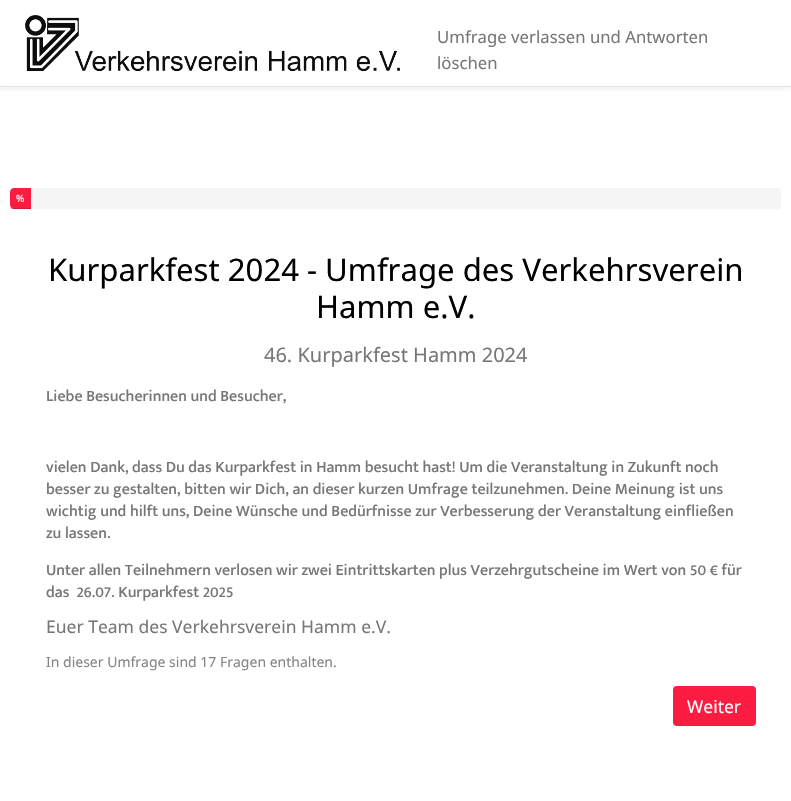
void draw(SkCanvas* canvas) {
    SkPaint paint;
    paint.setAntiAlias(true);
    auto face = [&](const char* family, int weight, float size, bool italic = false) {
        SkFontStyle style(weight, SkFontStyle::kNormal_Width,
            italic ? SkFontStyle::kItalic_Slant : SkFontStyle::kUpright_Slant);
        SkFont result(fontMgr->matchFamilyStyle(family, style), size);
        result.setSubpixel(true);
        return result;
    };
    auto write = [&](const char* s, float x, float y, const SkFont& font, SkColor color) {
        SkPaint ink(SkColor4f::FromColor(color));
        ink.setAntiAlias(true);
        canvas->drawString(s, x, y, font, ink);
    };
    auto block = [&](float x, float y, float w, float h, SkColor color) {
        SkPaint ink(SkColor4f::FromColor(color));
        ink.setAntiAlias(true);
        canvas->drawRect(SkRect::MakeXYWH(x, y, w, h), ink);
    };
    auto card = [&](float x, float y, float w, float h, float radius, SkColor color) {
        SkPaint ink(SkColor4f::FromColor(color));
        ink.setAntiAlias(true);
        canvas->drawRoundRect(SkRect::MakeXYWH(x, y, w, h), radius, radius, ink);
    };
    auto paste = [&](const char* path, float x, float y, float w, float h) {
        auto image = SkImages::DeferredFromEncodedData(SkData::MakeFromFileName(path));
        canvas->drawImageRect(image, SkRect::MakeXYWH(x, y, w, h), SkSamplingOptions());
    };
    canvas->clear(SK_ColorWHITE);
    canvas->save();
    canvas->clipRect(SkRect::MakeXYWH(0, 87, 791, 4));
    paint.setColor(SkColorSetARGB(26, 132, 136, 139));
    paint.setMaskFilter(SkMaskFilter::MakeBlur(kNormal_SkBlurStyle, 1.5f));
    canvas->drawRect(SkRect::MakeXYWH(0, 3, 791, 87), paint);
    paint.setMaskFilter(nullptr);
    canvas->restore();
    block(0, 86, 791, 1, SkColorSetRGB(222, 226, 230));
    paste("pic1.png", 25, 15, 375, 57);
    auto kFont1 = face("Noto Sans", 400, 16.75f);
    write("Umfrage verlassen und Antworten", 437, 43, kFont1, SkColorSetRGB(119, 119, 119));
    write("löschen", 437, 69, kFont1, SkColorSetRGB(119, 119, 119));
    card(10, 188, 771, 21, 4, SkColorSetRGB(245, 245, 245));
    paint.setColor(SkColorSetRGB(252, 28, 66));
    canvas->drawPath(SkPathBuilder().moveTo(14, 188).lineTo(31, 188).lineTo(31, 209).lineTo(14, 209).cubicTo(12, 209, 10, 207, 10, 205).lineTo(10, 192).cubicTo(10, 190, 12, 188, 14, 188).close().detach(), paint);
    block(10, 208, 21, 1, SkColorSetARGB(38, 0, 0, 0));
    auto kFont2 = face("Noto Sans", 400, 10);
    write("%", 16, 202, kFont2, SK_ColorWHITE);
    auto kFont3 = face("Noto Sans", 400, 31.1f);
    write("Kurparkfest 2024 - Umfrage des Verkehrsverein", 48, 281, kFont3, SK_ColorBLACK);
    write("Hamm e.V.", 316, 318, kFont3, SK_ColorBLACK);
    auto kFont4 = face("Noto Sans", 400, 20);
    write("46. Kurparkfest Hamm 2024", 264, 362, kFont4, SkColorSetRGB(119, 119, 119));
    auto kFont5 = face("Mukta Mahee", 500, 16);
    write("Liebe Besucherinnen und Besucher,", 46, 401, kFont5, SkColorSetRGB(119, 119, 119));
    write("vielen Dank, dass Du das Kurparkfest in Hamm besucht hast! Um die Veranstaltung in Zukunft noch", 46, 472, kFont5, SkColorSetRGB(119, 119, 119));
    write("besser zu gestalten, bitten wir Dich, an dieser kurzen Umfrage teilzunehmen. Deine Meinung ist uns", 46, 494, kFont5, SkColorSetRGB(119, 119, 119));
    write("wichtig und hilft uns, Deine Wünsche und Bedürfnisse zur Verbesserung der Veranstaltung einfließen", 46, 516, kFont5, SkColorSetRGB(119, 119, 119));
    write("zu lassen.", 46, 538, kFont5, SkColorSetRGB(119, 119, 119));
    write("Unter allen Teilnehmern verlosen wir zwei Eintrittskarten plus Verzehrgutscheine im Wert von 50 € für", 46, 575, kFont5, SkColorSetRGB(119, 119, 119));
    write("das  26.07. Kurparkfest 2025", 46, 597, kFont5, SkColorSetRGB(119, 119, 119));
    auto kFont6 = face("Noto Sans", 400, 17.5f);
    write("Euer Team des Verkehrsverein Hamm e.V.", 46, 633, kFont6, SkColorSetRGB(119, 119, 119));
    auto kFont7 = face("Noto Sans", 400, 14);
    write("In dieser Umfrage sind 17 Fragen enthalten.", 46, 667, kFont7, SkColorSetRGB(133, 133, 133));
    card(673, 686, 83, 40, 4, SkColorSetRGB(252, 28, 66));
    write("Weiter", 687, 713, kFont6, SK_ColorWHITE);
}
